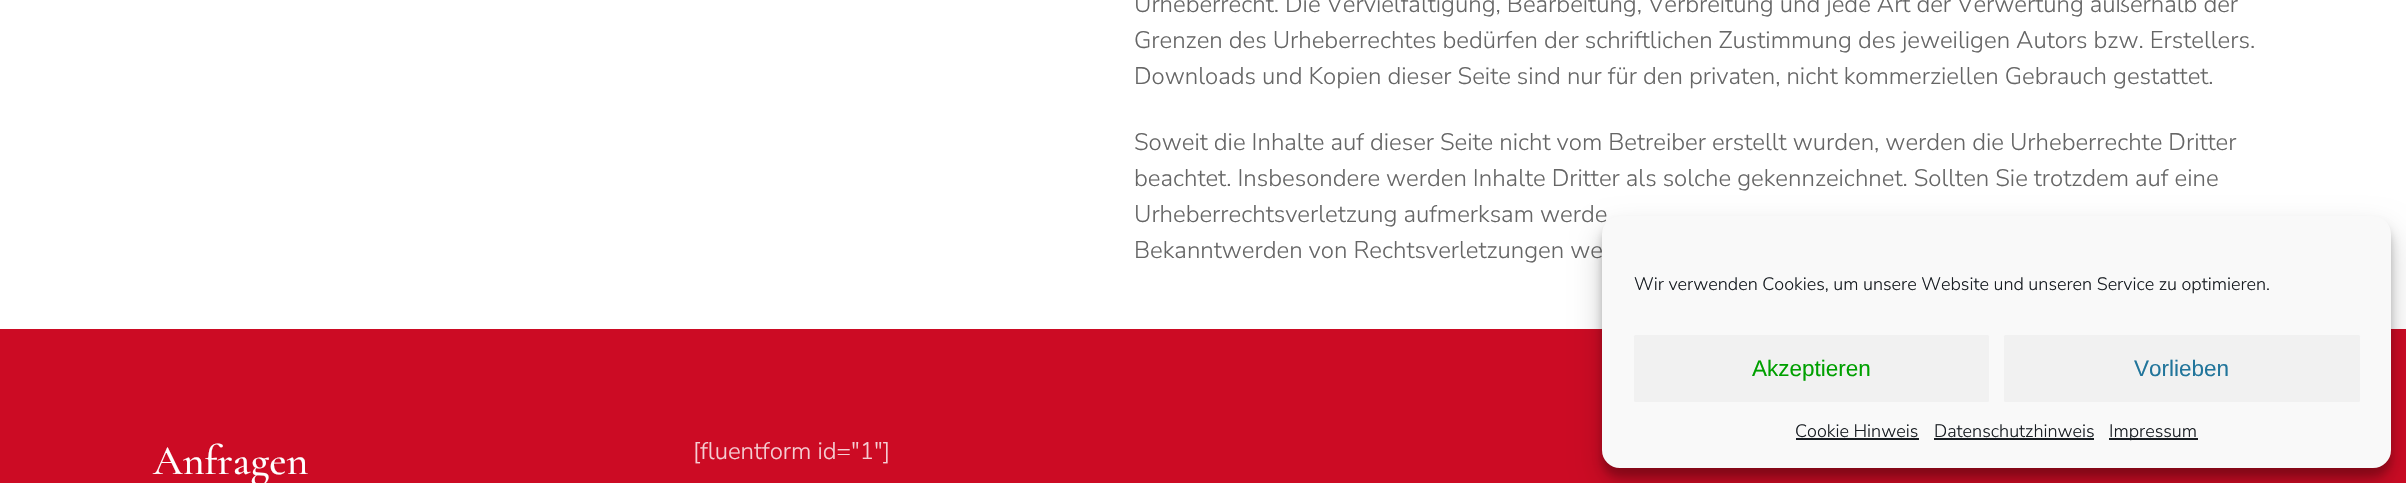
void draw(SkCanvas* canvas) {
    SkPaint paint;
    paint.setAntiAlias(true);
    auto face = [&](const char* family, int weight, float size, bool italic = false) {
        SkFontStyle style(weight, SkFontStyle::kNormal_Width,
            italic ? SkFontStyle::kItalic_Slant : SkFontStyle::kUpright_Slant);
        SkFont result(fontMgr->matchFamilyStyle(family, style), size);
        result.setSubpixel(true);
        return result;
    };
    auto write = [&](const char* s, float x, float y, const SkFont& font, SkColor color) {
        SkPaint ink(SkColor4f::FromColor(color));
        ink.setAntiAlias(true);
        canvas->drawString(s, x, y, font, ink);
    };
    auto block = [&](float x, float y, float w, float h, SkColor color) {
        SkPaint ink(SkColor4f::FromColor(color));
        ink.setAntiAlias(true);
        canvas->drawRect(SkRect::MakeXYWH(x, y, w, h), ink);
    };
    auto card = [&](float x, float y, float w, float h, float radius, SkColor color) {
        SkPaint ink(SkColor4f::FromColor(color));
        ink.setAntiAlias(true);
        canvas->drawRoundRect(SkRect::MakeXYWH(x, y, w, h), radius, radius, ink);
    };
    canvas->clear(SK_ColorWHITE);
    auto kFont1 = face("Nunito Sans", 200, 24);
    write("Urheberrecht. Die Vervielfältigung, Bearbeitung, Verbreitung und jede Art der Verwertung außerhalb der", 1134, 12, kFont1, SkColorSetRGB(102, 102, 102));
    write("Grenzen des Urheberrechtes bedürfen der schriftlichen Zustimmung des jeweiligen Autors bzw. Erstellers.", 1134, 48, kFont1, SkColorSetRGB(102, 102, 102));
    write("Downloads und Kopien dieser Seite sind nur für den privaten, nicht kommerziellen Gebrauch gestattet.", 1134, 84, kFont1, SkColorSetRGB(102, 102, 102));
    write("Soweit die Inhalte auf dieser Seite nicht vom Betreiber erstellt wurden, werden die Urheberrechte Dritter", 1134, 150, kFont1, SkColorSetRGB(102, 102, 102));
    write("beachtet. Insbesondere werden Inhalte Dritter als solche gekennzeichnet. Sollten Sie trotzdem auf eine", 1134, 186, kFont1, SkColorSetRGB(102, 102, 102));
    write("Urheberrechtsverletzung aufmerksam werde", 1134, 222, kFont1, SkColorSetRGB(102, 102, 102));
    write("Bekanntwerden von Rechtsverletzungen we", 1134, 258, kFont1, SkColorSetRGB(102, 102, 102));
    block(0, 329, 2406, 154, SkColorSetRGB(204, 11, 36));
    auto kFont2 = face("Cormorant Garamond", 500, 42);
    write("Anfragen", 153, 474, kFont2, SK_ColorWHITE);
    write("[fluentform id=\"1\"]", 693, 459, kFont1, SkColorSetRGB(245, 206, 211));
    paint.setColor(SkColorSetARGB(59, 0, 0, 0));
    paint.setMaskFilter(SkMaskFilter::MakeBlur(kNormal_SkBlurStyle, 4.5f));
    canvas->drawRoundRect(SkRect::MakeXYWH(1602, 225, 789, 252), 18, 18, paint);
    paint.setMaskFilter(nullptr);
    paint.setColor(SkColorSetARGB(48, 0, 0, 0));
    paint.setMaskFilter(SkMaskFilter::MakeBlur(kNormal_SkBlurStyle, 15));
    canvas->drawRoundRect(SkRect::MakeXYWH(1602, 231, 789, 252), 18, 18, paint);
    paint.setMaskFilter(nullptr);
    paint.setColor(SkColorSetRGB(249, 249, 249));
    canvas->drawRoundRect(SkRect::MakeXYWH(1603, 217, 787, 250), 17, 17, paint);
    paint.setStyle(SkPaint::kStroke_Style);
    paint.setStrokeWidth(2);
    canvas->drawRoundRect(SkRect::MakeXYWH(1603, 217, 787, 250), 17, 17, paint);
    auto kFont3 = face("Nunito Sans", 200, 18);
    write("Wir verwenden Cookies, um unsere Website und unseren Service zu optimieren.", 1634, 290, kFont3, SkColorSetRGB(25, 30, 35));
    card(1634, 335, 355, 67, 1.5f, SkColorSetRGB(241, 241, 241));
    auto kFont4 = face("Liberation Sans", 400, 22.5f);
    write("Akzeptieren", 1752, 376, kFont4, SkColorSetRGB(0, 160, 0));
    card(2004, 335, 356, 67, 1.5f, SkColorSetRGB(241, 241, 241));
    write("Vorlieben", 2134, 376, kFont4, SkColorSetRGB(33, 117, 155));
    write("Cookie Hinweis", 1795, 437, kFont3, SkColorSetRGB(25, 30, 35));
    block(1796, 438, 123, 2, SkColorSetRGB(25, 30, 35));
    write("Datenschutzhinweis", 1934, 437, kFont3, SkColorSetRGB(25, 30, 35));
    block(1934, 438, 160, 2, SkColorSetRGB(25, 30, 35));
    block(2109, 438, 89, 2, SkColorSetRGB(25, 30, 35));
    write("Impressum", 2109, 437, kFont3, SkColorSetRGB(25, 30, 35));
}
